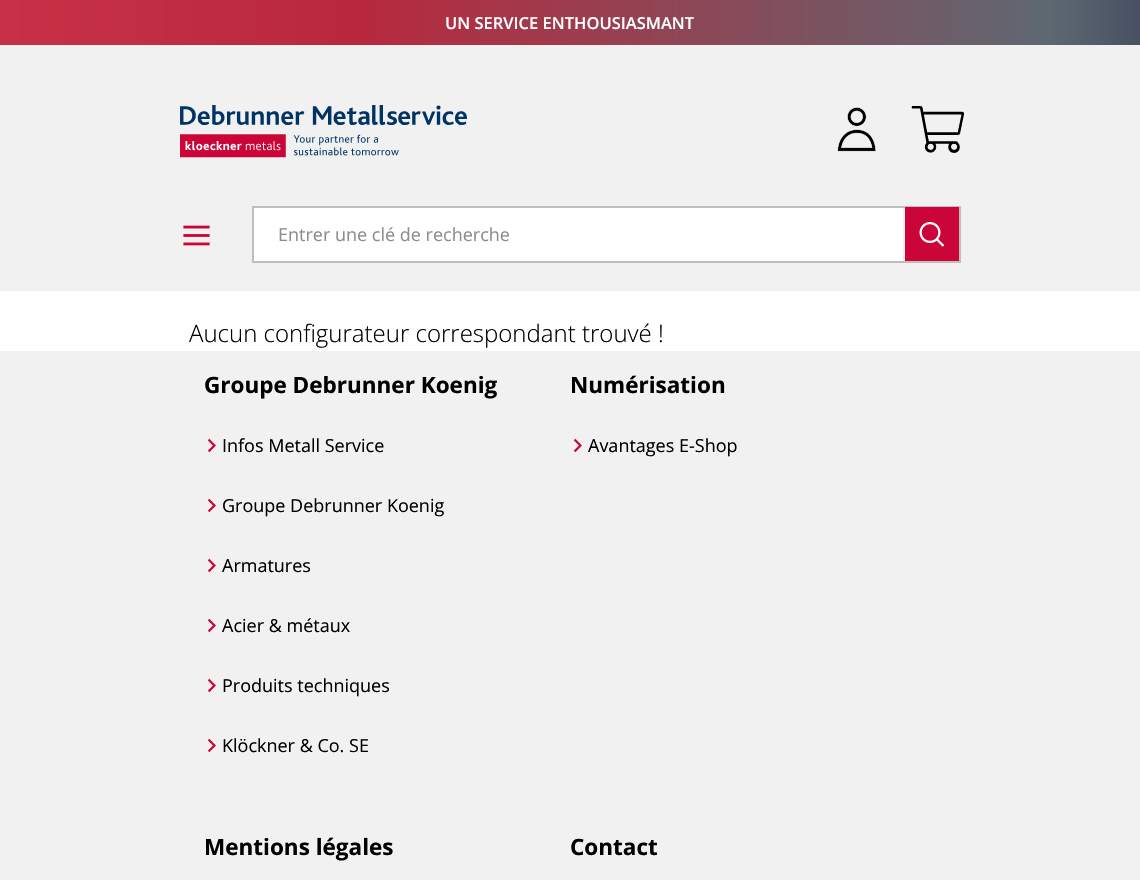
void draw(SkCanvas* canvas) {
    SkPaint paint;
    paint.setAntiAlias(true);
    auto face = [&](const char* family, int weight, float size, bool italic = false) {
        SkFontStyle style(weight, SkFontStyle::kNormal_Width,
            italic ? SkFontStyle::kItalic_Slant : SkFontStyle::kUpright_Slant);
        SkFont result(fontMgr->matchFamilyStyle(family, style), size);
        result.setSubpixel(true);
        return result;
    };
    auto write = [&](const char* s, float x, float y, const SkFont& font, SkColor color) {
        SkPaint ink(SkColor4f::FromColor(color));
        ink.setAntiAlias(true);
        canvas->drawString(s, x, y, font, ink);
    };
    auto block = [&](float x, float y, float w, float h, SkColor color) {
        SkPaint ink(SkColor4f::FromColor(color));
        ink.setAntiAlias(true);
        canvas->drawRect(SkRect::MakeXYWH(x, y, w, h), ink);
    };
    auto paste = [&](const char* path, float x, float y, float w, float h) {
        auto image = SkImages::DeferredFromEncodedData(SkData::MakeFromFileName(path));
        canvas->drawImageRect(image, SkRect::MakeXYWH(x, y, w, h), SkSamplingOptions());
    };
    canvas->clear(SK_ColorWHITE);
    {
        const SkColor colors[] = {SkColorSetRGB(199, 49, 71), SkColorSetRGB(185, 40, 61), SkColorSetRGB(94, 104, 113), SkColorSetRGB(73, 81, 99)};
        const float stops[] = {0, 0.31f, 0.92f, 1};
        const SkPoint ends[] = {{0, 23}, {1140, 22}};
        paint.setShader(SkGradientShader::MakeLinear(ends, colors, stops, 4, SkTileMode::kClamp));
        paint.setAlpha(255);
    }
    canvas->drawRect(SkRect::MakeXYWH(0, 0, 1140, 45), paint);
    auto kFont1 = face("Open Sans", 600, 16.5f);
    write("UN SERVICE ENTHOUSIASMANT", 445, 29, kFont1, SK_ColorWHITE);
    block(0, 45, 1140, 246, SkColorSetRGB(241, 241, 241));
    paste("pic1.png", 837, 107, 39, 45);
    paste("pic2.png", 911, 106, 54, 47);
    paste("pic3.png", 183, 225, 27, 21);
    paste("pic4.png", 180, 105, 287, 53);
    block(252, 206, 708, 2, SkColorSetRGB(190, 190, 190));
    block(959, 206, 2, 57, SkColorSetRGB(190, 190, 190));
    block(252, 261, 708, 2, SkColorSetRGB(190, 190, 190));
    block(905, 207, 54, 54, SkColorSetRGB(203, 5, 56));
    paste("pic5.png", 919, 222, 26, 25);
    block(254, 208, 649, 53, SK_ColorWHITE);
    block(252, 206, 2, 57, SkColorSetRGB(190, 190, 190));
    auto kFont2 = face("Open Sans", 400, 18);
    write("Entrer une clé de recherche", 278, 241, kFont2, SkColorSetRGB(141, 141, 141));
    auto kFont3 = face("Open Sans", 300, 24);
    write("Aucun configurateur correspondant trouvé !", 189, 342, kFont3, SK_ColorBLACK);
    block(0, 351, 1140, 529, SkColorSetRGB(241, 241, 241));
    auto kFont4 = face("Open Sans", 700, 22.5f);
    write("Groupe Debrunner Koenig", 204, 393, kFont4, SK_ColorBLACK);
    paste("pic6.png", 207, 438, 9, 15);
    write("Infos Metall Service", 222, 452, kFont2, SK_ColorBLACK);
    paste("pic6.png", 207, 498, 9, 15);
    write("Groupe Debrunner Koenig", 222, 512, kFont2, SK_ColorBLACK);
    paste("pic6.png", 207, 558, 9, 15);
    write("Armatures", 222, 572, kFont2, SK_ColorBLACK);
    paste("pic6.png", 207, 618, 9, 15);
    write("Acier & métaux", 222, 632, kFont2, SK_ColorBLACK);
    paste("pic6.png", 207, 678, 9, 15);
    write("Produits techniques", 222, 692, kFont2, SK_ColorBLACK);
    paste("pic6.png", 207, 738, 9, 15);
    write("Klöckner & Co. SE", 222, 752, kFont2, SK_ColorBLACK);
    write("Numérisation", 570, 393, kFont4, SK_ColorBLACK);
    paste("pic6.png", 573, 438, 9, 15);
    write("Avantages E-Shop", 588, 452, kFont2, SK_ColorBLACK);
    write("Mentions légales", 204, 855, kFont4, SK_ColorBLACK);
    write("Contact", 570, 855, kFont4, SK_ColorBLACK);
}
